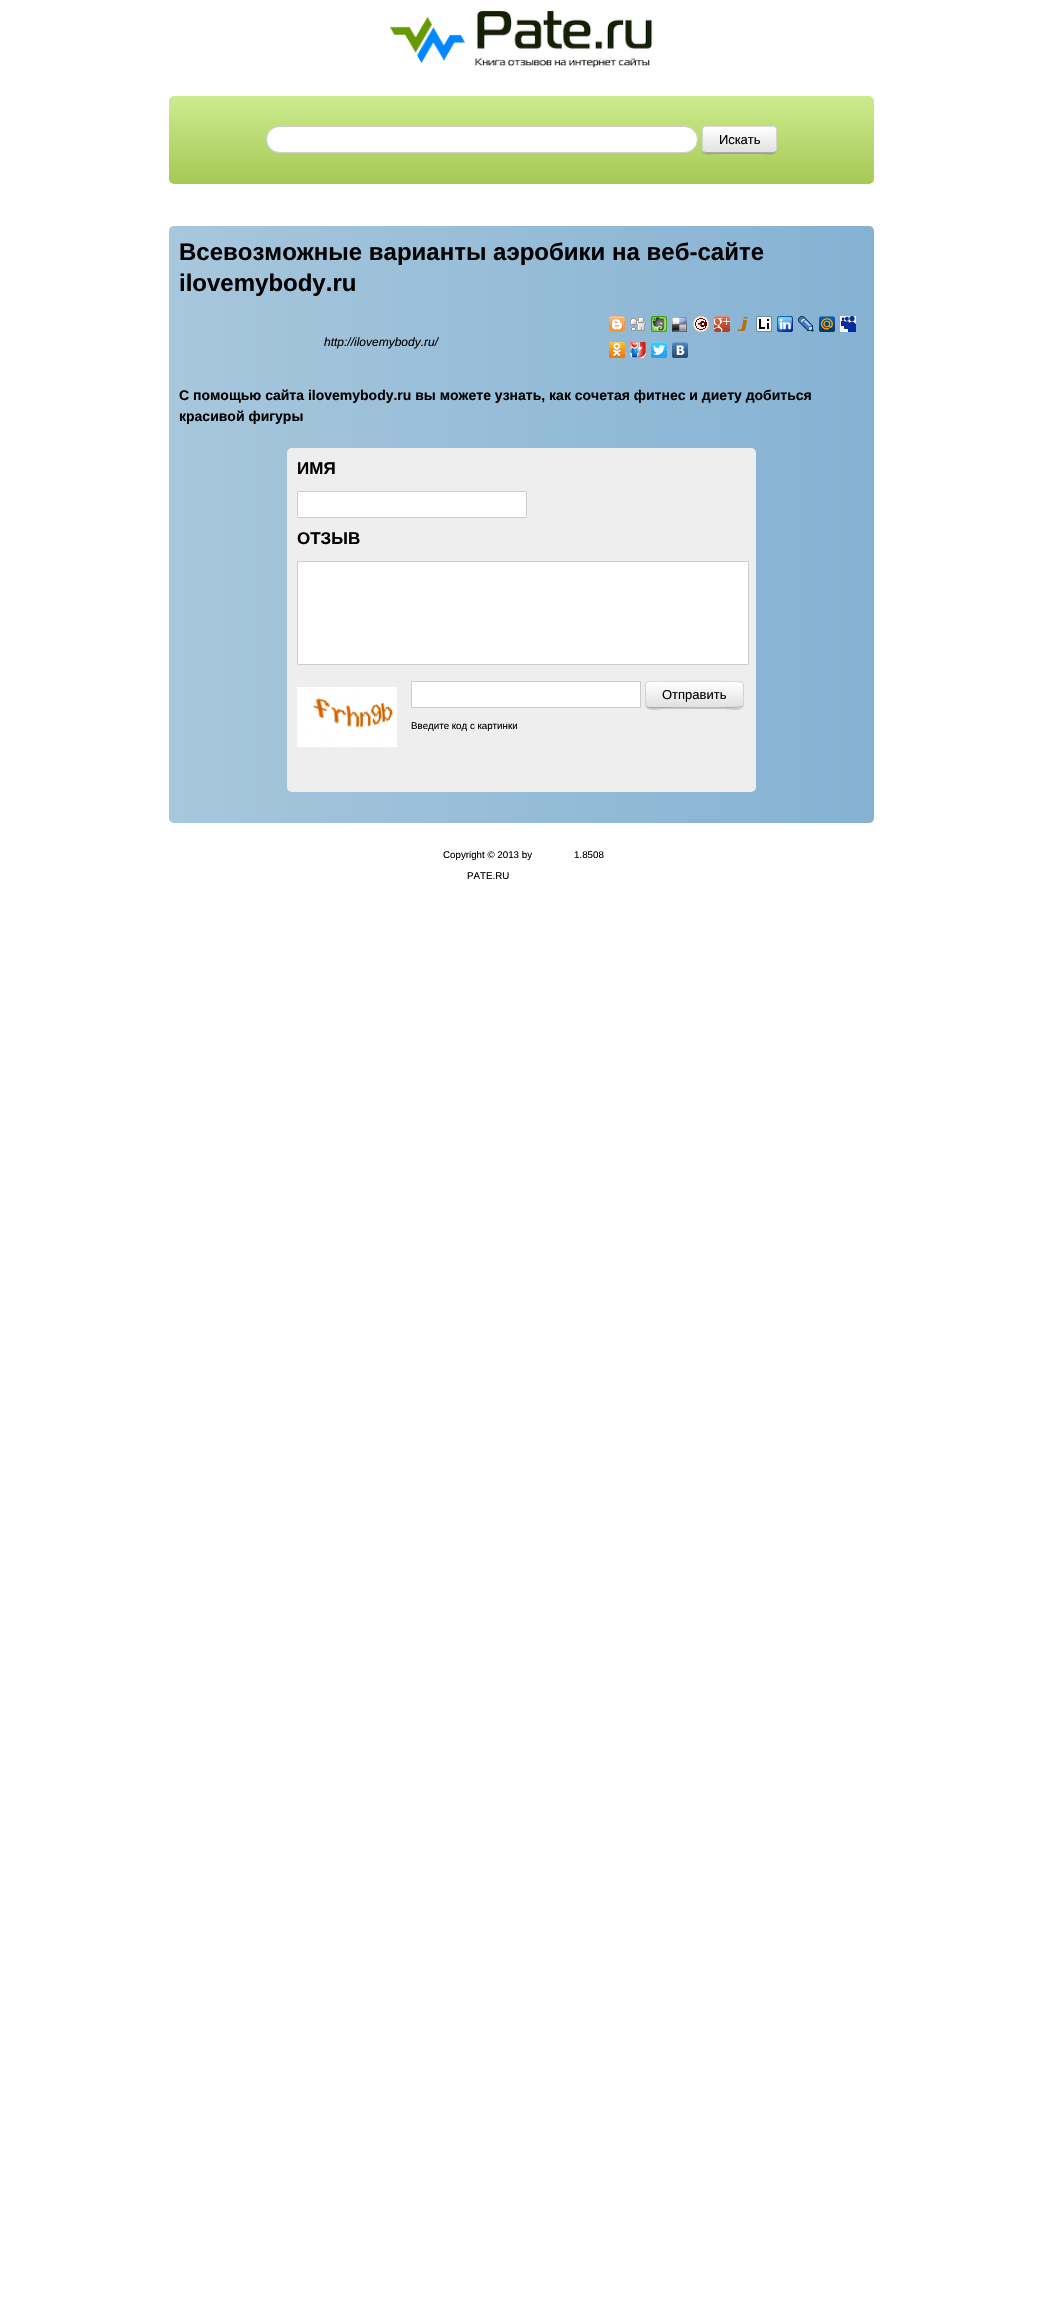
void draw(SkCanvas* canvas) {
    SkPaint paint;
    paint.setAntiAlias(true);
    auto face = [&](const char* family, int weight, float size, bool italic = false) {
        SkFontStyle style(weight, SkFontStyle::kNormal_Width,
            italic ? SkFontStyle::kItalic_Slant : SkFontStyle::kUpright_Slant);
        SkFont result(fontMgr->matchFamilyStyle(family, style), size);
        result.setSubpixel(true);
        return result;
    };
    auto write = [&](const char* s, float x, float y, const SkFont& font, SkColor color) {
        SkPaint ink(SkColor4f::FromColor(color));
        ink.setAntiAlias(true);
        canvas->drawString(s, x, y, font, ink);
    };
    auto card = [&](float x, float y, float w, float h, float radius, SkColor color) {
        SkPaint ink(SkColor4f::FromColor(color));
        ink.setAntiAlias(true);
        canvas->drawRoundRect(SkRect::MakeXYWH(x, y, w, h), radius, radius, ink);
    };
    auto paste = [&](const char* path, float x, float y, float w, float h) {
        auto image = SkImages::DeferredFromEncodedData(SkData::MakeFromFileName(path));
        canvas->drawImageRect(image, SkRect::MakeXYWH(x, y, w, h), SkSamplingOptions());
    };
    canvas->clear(SK_ColorWHITE);
    paste("pic1.png", 389, 10, 264, 58);
    {
        const SkColor colors[] = {SkColorSetRGB(205, 235, 142), SkColorSetRGB(165, 201, 86)};
        const float stops[] = {0, 1};
        const SkPoint ends[] = {{522, 96}, {522, 184}};
        paint.setShader(SkGradientShader::MakeLinear(ends, colors, stops, 2, SkTileMode::kClamp));
        paint.setAlpha(255);
    }
    canvas->drawRoundRect(SkRect::MakeXYWH(169, 96, 705, 88), 5, 5, paint);
    paint.setShader(nullptr);
    paint.setColor(SK_ColorWHITE);
    canvas->drawRoundRect(SkRect::MakeXYWH(266.5f, 126.5f, 431, 26), 13, 13, paint);
    paint.setStyle(SkPaint::kStroke_Style);
    paint.setStrokeWidth(1);
    paint.setColor(SkColorSetRGB(204, 204, 204));
    canvas->drawRoundRect(SkRect::MakeXYWH(266.5f, 126.5f, 431, 26), 13, 13, paint);
    paint.setStyle(SkPaint::kFill_Style);
    paint.setColor(SkColorSetRGB(152, 181, 89));
    canvas->drawPath(SkPathBuilder().moveTo(702, 149).cubicTo(702, 157, 712, 154, 717, 154).lineTo(762, 154).cubicTo(767, 154, 777, 157, 777, 149).cubicTo(777, 151, 775, 153, 773, 153).lineTo(706, 153).cubicTo(704, 153, 702, 151, 702, 149).close().detach(), paint);
    canvas->save();
    canvas->clipPath(SkPathBuilder().moveTo(706, 126).lineTo(773, 126).cubicTo(775, 126, 777, 128, 777, 130).lineTo(777, 149).cubicTo(777, 151, 775, 153, 773, 153).lineTo(706, 153).cubicTo(704, 153, 702, 151, 702, 149).lineTo(702, 130).cubicTo(702, 128, 704, 126, 706, 126).close().detach(), true);
    {
        const SkColor colors[] = {SK_ColorWHITE, SkColorSetRGB(225, 225, 225)};
        const float stops[] = {0, 1};
        const SkPoint ends[] = {{740, 102}, {740, 127}};
        paint.setShader(SkGradientShader::MakeLinear(ends, colors, stops, 2, SkTileMode::kClamp));
        paint.setAlpha(255);
    }
    canvas->drawRect(SkRect::MakeXYWH(702, 126, 75, 1), paint);
    {
        const SkColor colors[] = {SK_ColorWHITE, SkColorSetRGB(225, 225, 225)};
        const float stops[] = {0, 1};
        const SkPoint ends[] = {{740, 127}, {740, 152}};
        paint.setShader(SkGradientShader::MakeLinear(ends, colors, stops, 2, SkTileMode::kClamp));
        paint.setAlpha(255);
    }
    canvas->drawRect(SkRect::MakeXYWH(702, 127, 75, 25), paint);
    canvas->restore();
    paint.setShader(nullptr);
    paint.setColor(SkColorSetARGB(153, 255, 255, 255));
    canvas->drawPath(SkPathBuilder().moveTo(706, 128).lineTo(773, 128).cubicTo(775, 128, 776, 129, 776, 131).cubicTo(776, 124, 766, 127, 762, 127).lineTo(717, 127).cubicTo(713, 127, 703, 124, 703, 131).cubicTo(703, 129, 704, 128, 706, 128).close().detach(), paint);
    paint.setStyle(SkPaint::kStroke_Style);
    paint.setColor(SkColorSetRGB(218, 218, 218));
    canvas->drawPath(SkPathBuilder().moveTo(703.5f, 127.5f).lineTo(705.5f, 126.5f).lineTo(773.5f, 126.5f).lineTo(775.5f, 127.5f).detach(), paint);
    paint.setColor(SkColorSetRGB(210, 210, 210));
    canvas->drawPath(SkPathBuilder().moveTo(775.5f, 127.5f).cubicTo(776, 128, 776.5f, 129, 776.5f, 130).lineTo(776.5f, 149).cubicTo(776.5f, 150, 776, 151, 775.5f, 151.5f).detach(), paint);
    paint.setColor(SkColorSetRGB(169, 169, 169));
    canvas->drawPath(SkPathBuilder().moveTo(775.5f, 151.5f).lineTo(773.5f, 152.5f).lineTo(705.5f, 152.5f).lineTo(703.5f, 151.5f).detach(), paint);
    paint.setColor(SkColorSetRGB(210, 210, 210));
    canvas->drawPath(SkPathBuilder().moveTo(703.5f, 151.5f).cubicTo(703, 151, 702.5f, 150, 702.5f, 149).lineTo(702.5f, 130).cubicTo(702.5f, 129, 703, 128, 703.5f, 127.5f).detach(), paint);
    auto kFont1 = face("Liberation Sans", 400, 13);
    write("Искать", 719, 144, kFont1, SK_ColorBLACK);
    paint.setStyle(SkPaint::kFill_Style);
    {
        const SkColor colors[] = {SkColorSetRGB(167, 199, 220), SkColorSetRGB(133, 178, 211)};
        const float stops[] = {0, 1};
        const SkPoint ends[] = {{169, 525}, {874, 525}};
        paint.setShader(SkGradientShader::MakeLinear(ends, colors, stops, 2, SkTileMode::kClamp));
        paint.setAlpha(255);
    }
    canvas->drawRoundRect(SkRect::MakeXYWH(169, 226, 705, 597), 5, 5, paint);
    auto kFont2 = face("Liberation Sans", 700, 24);
    write("Всевозможные варианты аэробики на веб-сайте", 179, 260, kFont2, SK_ColorBLACK);
    write("ilovemybody.ru", 179, 291, kFont2, SK_ColorBLACK);
    auto kFont3 = face("Liberation Sans", 400, 12, true);
    write("http://ilovemybody.ru/", 324, 346, kFont3, SK_ColorBLACK);
    paste("pic2.png", 609, 316, 16, 16);
    paste("pic3.png", 630, 317, 16, 14);
    paste("pic4.png", 651, 316, 16, 16);
    paste("pic5.png", 672, 317, 15, 15);
    paste("pic6.png", 693, 316, 16, 16);
    paste("pic7.png", 714, 316, 16, 16);
    paste("pic8.png", 737, 317, 11, 14);
    paste("pic9.png", 756, 316, 16, 16);
    paste("pic10.png", 777, 316, 16, 16);
    paste("pic11.png", 798, 316, 16, 16);
    paste("pic12.png", 819, 316, 16, 16);
    paste("pic13.png", 840, 316, 16, 16);
    paste("pic14.png", 609, 342, 16, 16);
    paste("pic15.png", 630, 342, 16, 16);
    paste("pic16.png", 651, 342, 16, 16);
    paste("pic17.png", 672, 342, 16, 16);
    auto kFont4 = face("Liberation Sans", 700, 14);
    write("С помощью сайта ilovemybody.ru вы можете узнать, как сочетая фитнес и диету добиться", 179, 400, kFont4, SK_ColorBLACK);
    write("красивой фигуры", 179, 421, kFont4, SK_ColorBLACK);
    card(287, 448, 469, 344, 5, SkColorSetRGB(238, 238, 238));
    auto kFont5 = face("Liberation Sans", 700, 17);
    write("ИМЯ", 297, 474, kFont5, SK_ColorBLACK);
    paint.setShader(nullptr);
    paint.setColor(SK_ColorWHITE);
    canvas->drawRoundRect(SkRect::MakeXYWH(297.5f, 491.5f, 229, 26), 0.5f, 0.5f, paint);
    paint.setStyle(SkPaint::kStroke_Style);
    paint.setColor(SkColorSetRGB(204, 204, 204));
    canvas->drawRoundRect(SkRect::MakeXYWH(297.5f, 491.5f, 229, 26), 0.5f, 0.5f, paint);
    write("ОТЗЫВ", 297, 544, kFont5, SK_ColorBLACK);
    paint.setStyle(SkPaint::kFill_Style);
    paint.setColor(SK_ColorWHITE);
    canvas->drawRoundRect(SkRect::MakeXYWH(297.5f, 561.5f, 451, 103), 0.5f, 0.5f, paint);
    paint.setStyle(SkPaint::kStroke_Style);
    paint.setColor(SkColorSetRGB(204, 204, 204));
    canvas->drawRoundRect(SkRect::MakeXYWH(297.5f, 561.5f, 451, 103), 0.5f, 0.5f, paint);
    paste("pic18.png", 297, 687, 100, 60);
    paint.setStyle(SkPaint::kFill_Style);
    paint.setColor(SK_ColorWHITE);
    canvas->drawRoundRect(SkRect::MakeXYWH(411.5f, 681.5f, 229, 26), 0.5f, 0.5f, paint);
    paint.setStyle(SkPaint::kStroke_Style);
    paint.setColor(SkColorSetRGB(204, 204, 204));
    canvas->drawRoundRect(SkRect::MakeXYWH(411.5f, 681.5f, 229, 26), 0.5f, 0.5f, paint);
    paint.setStyle(SkPaint::kFill_Style);
    paint.setColor(SkColorSetRGB(202, 202, 202));
    canvas->drawPath(SkPathBuilder().moveTo(645, 704).cubicTo(645, 713, 660, 709, 664, 709).lineTo(725, 709).cubicTo(729, 709, 744, 713, 744, 704).cubicTo(744, 706, 742, 708, 740, 708).lineTo(649, 708).cubicTo(647, 708, 645, 706, 645, 704).close().detach(), paint);
    canvas->save();
    canvas->clipPath(SkPathBuilder().moveTo(649, 681).lineTo(740, 681).cubicTo(742, 681, 744, 683, 744, 685).lineTo(744, 704).cubicTo(744, 706, 742, 708, 740, 708).lineTo(649, 708).cubicTo(647, 708, 645, 706, 645, 704).lineTo(645, 685).cubicTo(645, 683, 647, 681, 649, 681).close().detach(), true);
    {
        const SkColor colors[] = {SK_ColorWHITE, SkColorSetRGB(225, 225, 225)};
        const float stops[] = {0, 1};
        const SkPoint ends[] = {{695, 657}, {695, 682}};
        paint.setShader(SkGradientShader::MakeLinear(ends, colors, stops, 2, SkTileMode::kClamp));
        paint.setAlpha(255);
    }
    canvas->drawRect(SkRect::MakeXYWH(645, 681, 99, 1), paint);
    {
        const SkColor colors[] = {SK_ColorWHITE, SkColorSetRGB(225, 225, 225)};
        const float stops[] = {0, 1};
        const SkPoint ends[] = {{695, 682}, {695, 707}};
        paint.setShader(SkGradientShader::MakeLinear(ends, colors, stops, 2, SkTileMode::kClamp));
        paint.setAlpha(255);
    }
    canvas->drawRect(SkRect::MakeXYWH(645, 682, 99, 25), paint);
    {
        const SkColor colors[] = {SK_ColorWHITE, SkColorSetRGB(225, 225, 225)};
        const float stops[] = {0, 1};
        const SkPoint ends[] = {{695, 707}, {695, 732}};
        paint.setShader(SkGradientShader::MakeLinear(ends, colors, stops, 2, SkTileMode::kClamp));
        paint.setAlpha(255);
    }
    canvas->drawRect(SkRect::MakeXYWH(645, 707, 99, 1), paint);
    canvas->restore();
    paint.setShader(nullptr);
    paint.setColor(SkColorSetARGB(153, 255, 255, 255));
    canvas->drawPath(SkPathBuilder().moveTo(649, 683).lineTo(740, 683).cubicTo(742, 683, 743, 684, 743, 686).cubicTo(743, 678, 728, 682, 725, 682).lineTo(664, 682).cubicTo(661, 682, 646, 678, 646, 686).cubicTo(646, 684, 647, 683, 649, 683).close().detach(), paint);
    paint.setStyle(SkPaint::kStroke_Style);
    paint.setColor(SkColorSetRGB(218, 218, 218));
    canvas->drawPath(SkPathBuilder().moveTo(646.5f, 682.5f).lineTo(649, 681.5f).lineTo(664, 681.5f).cubicTo(673, 681.5f, 740, 680.5f, 742, 682.5f).lineTo(742.5f, 682.5f).detach(), paint);
    paint.setColor(SkColorSetRGB(210, 210, 210));
    canvas->drawPath(SkPathBuilder().moveTo(742.5f, 682.5f).cubicTo(743, 683, 743.5f, 684, 743.5f, 685).lineTo(743.5f, 704).cubicTo(743.5f, 705, 743, 706, 742.5f, 706.5f).detach(), paint);
    paint.setColor(SkColorSetRGB(169, 169, 169));
    canvas->drawPath(SkPathBuilder().moveTo(742.5f, 706.5f).lineTo(742, 706.5f).cubicTo(740, 708.5f, 673, 707.5f, 664, 707.5f).lineTo(649, 707.5f).lineTo(646.5f, 706.5f).detach(), paint);
    paint.setColor(SkColorSetRGB(210, 210, 210));
    canvas->drawPath(SkPathBuilder().moveTo(646.5f, 706.5f).cubicTo(646, 706, 645.5f, 705, 645.5f, 704).lineTo(645.5f, 685).cubicTo(645.5f, 684, 646, 683, 646.5f, 682.5f).detach(), paint);
    write("Отправить", 662, 699, kFont1, SK_ColorBLACK);
    auto kFont6 = face("Liberation Sans", 400, 9.75f);
    write("Введите код с картинки", 411, 729, kFont6, SK_ColorBLACK);
    write("Copyright © 2013 by", 443, 858, kFont6, SK_ColorBLACK);
    write("PATE.RU", 467, 879, kFont6, SK_ColorBLACK);
    write("1.8508", 574, 858, kFont6, SK_ColorBLACK);
}
